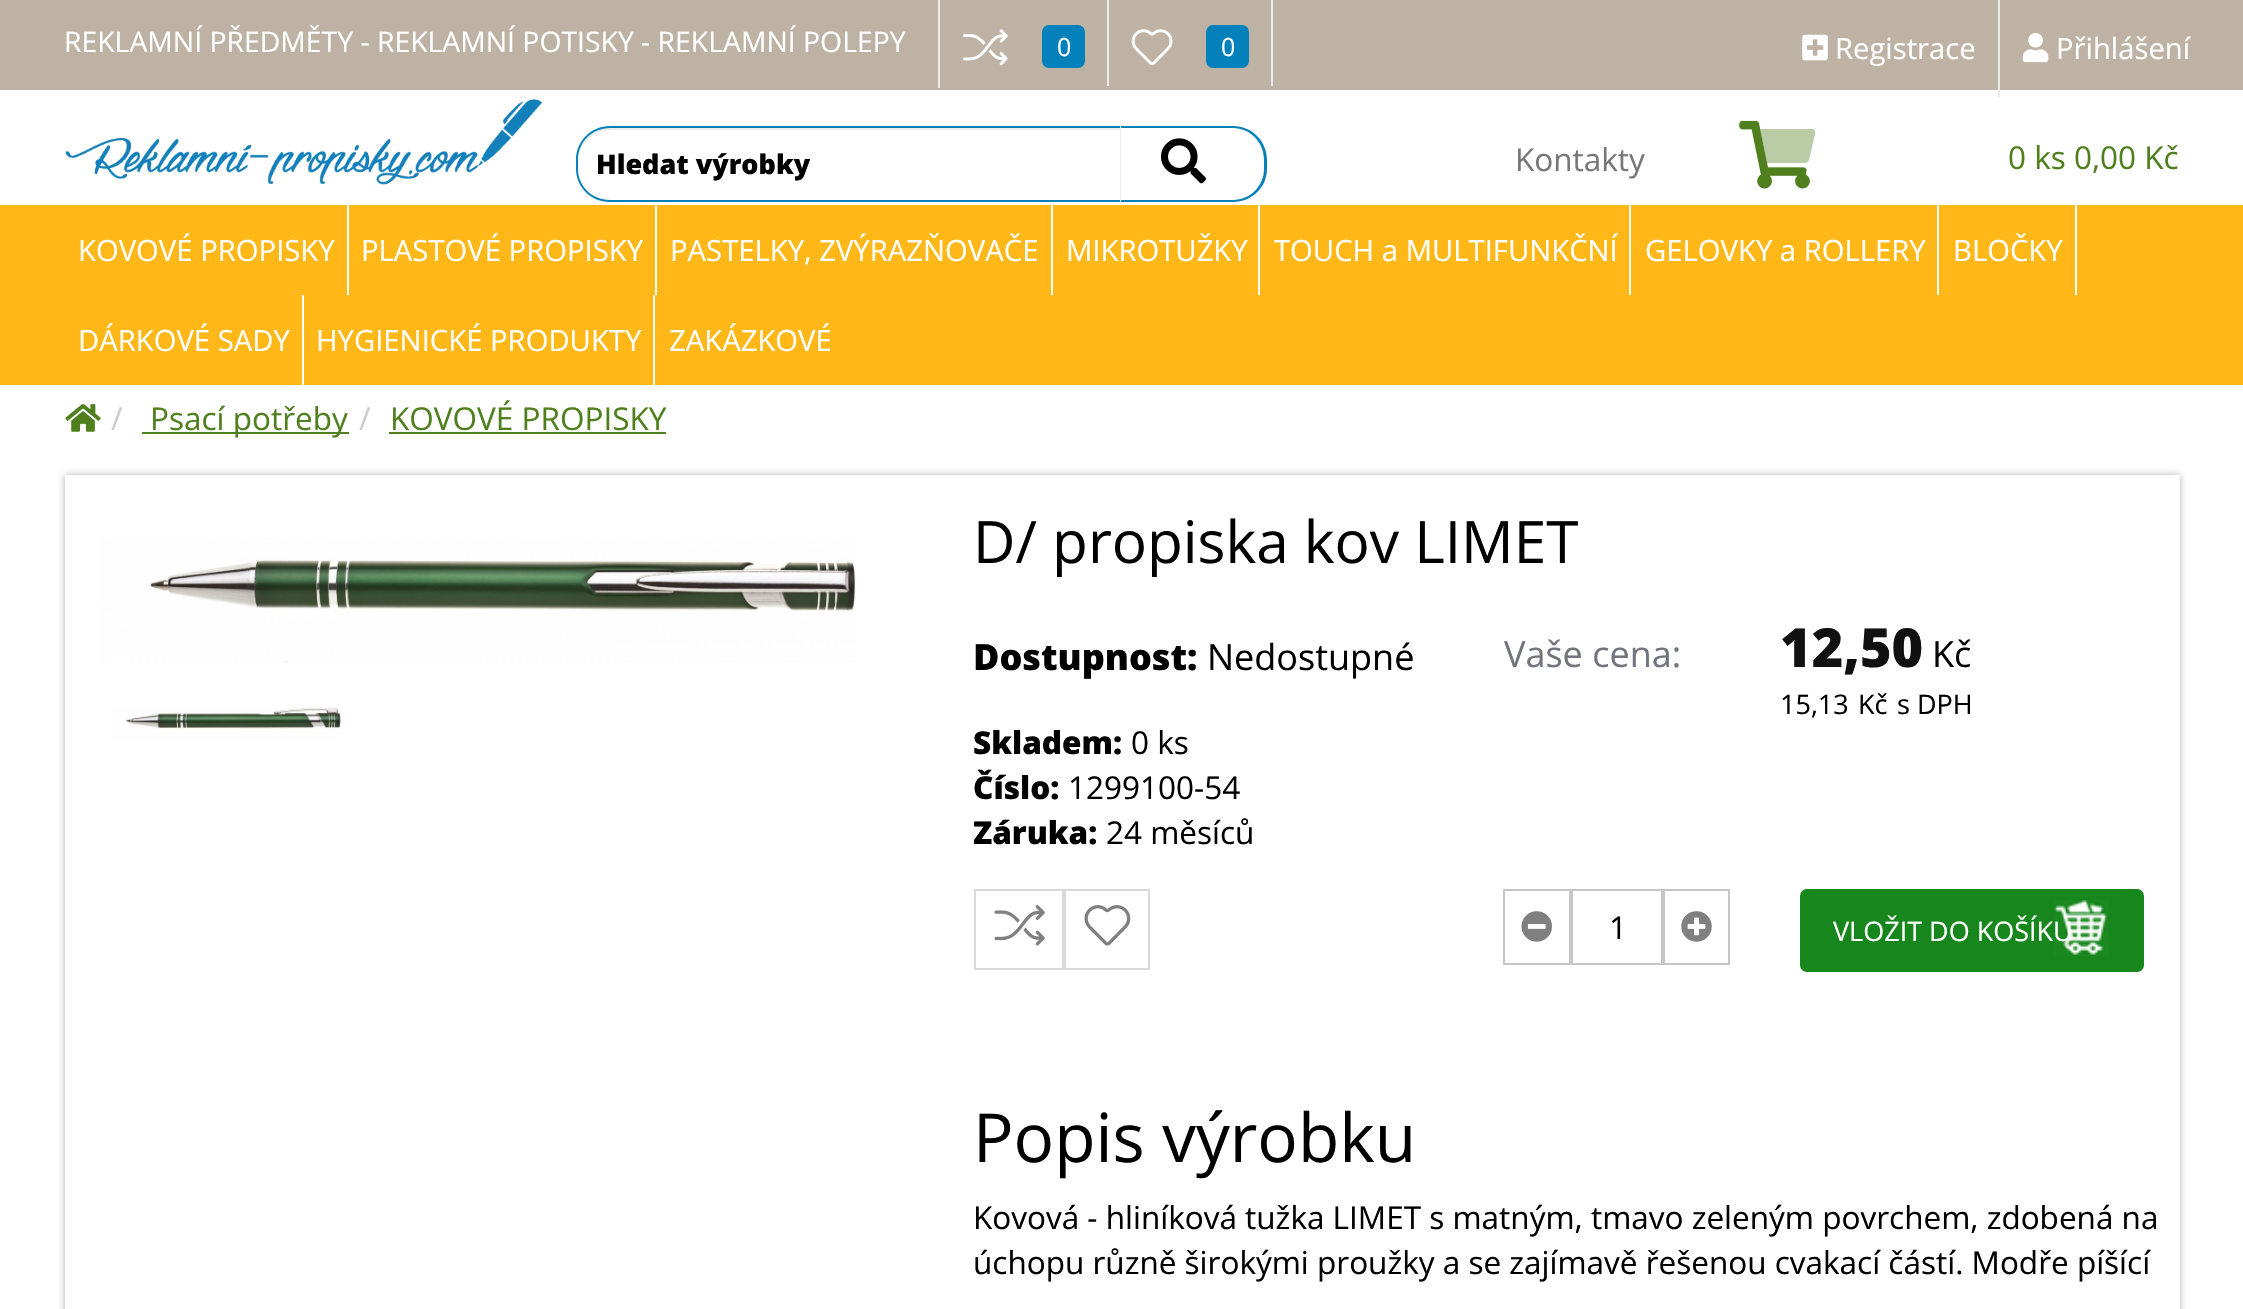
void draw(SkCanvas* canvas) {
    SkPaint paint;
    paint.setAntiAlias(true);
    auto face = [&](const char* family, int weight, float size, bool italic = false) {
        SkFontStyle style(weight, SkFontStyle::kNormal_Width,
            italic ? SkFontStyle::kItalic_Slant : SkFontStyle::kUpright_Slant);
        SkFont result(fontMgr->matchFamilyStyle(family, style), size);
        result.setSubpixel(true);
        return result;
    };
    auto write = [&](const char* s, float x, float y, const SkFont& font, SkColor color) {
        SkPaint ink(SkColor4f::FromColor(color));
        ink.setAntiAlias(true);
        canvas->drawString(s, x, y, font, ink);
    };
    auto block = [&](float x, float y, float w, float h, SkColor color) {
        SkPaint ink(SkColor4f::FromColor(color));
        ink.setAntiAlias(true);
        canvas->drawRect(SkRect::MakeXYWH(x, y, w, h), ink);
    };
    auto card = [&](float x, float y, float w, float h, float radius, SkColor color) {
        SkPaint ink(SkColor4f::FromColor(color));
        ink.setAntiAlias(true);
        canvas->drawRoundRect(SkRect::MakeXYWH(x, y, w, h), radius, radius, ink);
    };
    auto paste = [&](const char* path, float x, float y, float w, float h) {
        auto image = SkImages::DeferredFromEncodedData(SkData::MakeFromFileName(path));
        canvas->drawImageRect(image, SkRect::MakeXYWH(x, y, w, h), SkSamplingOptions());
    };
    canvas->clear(SK_ColorWHITE);
    block(0, 0, 2243, 90, SkColorSetRGB(190, 178, 165));
    block(938, 0, 2, 88, SkColorSetRGB(235, 235, 235));
    auto kFont1 = face("Open Sans", 400, 28.35f);
    write("REKLAMNÍ PŘEDMĚTY - REKLAMNÍ POTISKY - REKLAMNÍ POLEPY", 64, 52, kFont1, SK_ColorWHITE);
    block(1107, 0, 2, 86, SkColorSetRGB(235, 235, 235));
    paste("pic1.png", 963, 29, 45, 37);
    card(1042, 25, 43, 43, 7, SkColorSetRGB(4, 128, 186));
    auto kFont2 = face("Open Sans", 400, 25);
    write("0", 1057, 56, kFont2, SK_ColorWHITE);
    block(1271, 0, 2, 86, SkColorSetRGB(235, 235, 235));
    paste("pic2.png", 1131, 29, 42, 37);
    card(1206, 25, 43, 43, 7, SkColorSetRGB(4, 128, 186));
    write("0", 1221, 56, kFont2, SK_ColorWHITE);
    block(1998, 0, 2, 97, SkColorSetRGB(235, 235, 235));
    paste("pic3.png", 1802, 34, 26, 27);
    auto kFont3 = face("Open Sans", 400, 29.25f);
    write("Registrace", 1835, 59, kFont3, SK_ColorWHITE);
    paste("pic4.png", 2022, 32, 27, 31);
    write("Přihlášení", 2056, 59, kFont3, SK_ColorWHITE);
    paste("pic5.png", 65, 99, 478, 86);
    paint.setColor(SkColorSetRGB(4, 128, 186));
    canvas->drawPath(SkPathBuilder(SkPathFillType::kEvenOdd).moveTo(1120, 126).lineTo(1233, 126).cubicTo(1252, 126, 1267, 141, 1267, 160).lineTo(1267, 169).cubicTo(1267, 187, 1252, 202, 1233, 202).lineTo(1120, 202).close().moveTo(1120, 128).lineTo(1233, 128).cubicTo(1250, 128, 1264, 142, 1264, 160).lineTo(1264, 169).cubicTo(1264, 186, 1250, 200, 1233, 200).lineTo(1120, 200).close().detach(), paint);
    paint.setColor(SK_ColorWHITE);
    canvas->drawPath(SkPathBuilder().moveTo(610, 126).lineTo(1121, 126).lineTo(1121, 203).lineTo(610, 203).cubicTo(591, 203, 576, 188, 576, 169).lineTo(576, 160).cubicTo(576, 141, 591, 126, 610, 126).close().detach(), paint);
    paint.setColor(SkColorSetRGB(236, 236, 236));
    canvas->drawPath(SkPathBuilder().moveTo(610, 130).lineTo(1120, 130).lineTo(1120, 200).lineTo(1121, 200).lineTo(1121, 128).lineTo(610, 128).cubicTo(592, 128, 578, 142, 578, 160).lineTo(578, 162).cubicTo(578, 145, 592, 130, 610, 130).close().detach(), paint);
    paint.setColor(SkColorSetRGB(4, 128, 186));
    canvas->drawPath(SkPathBuilder(SkPathFillType::kEvenOdd).moveTo(610, 126).lineTo(1120, 126).lineTo(1120, 202).lineTo(610, 202).cubicTo(591, 202, 576, 187, 576, 169).lineTo(576, 160).cubicTo(576, 141, 591, 126, 610, 126).close().moveTo(610, 128).lineTo(1120, 128).lineTo(1120, 200).lineTo(610, 200).cubicTo(592, 200, 578, 186, 578, 169).lineTo(578, 160).cubicTo(578, 142, 592, 128, 610, 128).close().detach(), paint);
    auto kFont4 = face("Open Sans", 800, 27);
    write("Hledat výrobky", 596, 174, kFont4, SK_ColorBLACK);
    paste("pic6.png", 1161, 138, 45, 46);
    auto kFont5 = face("Open Sans", 400, 31.5f);
    write("Kontakty", 1515, 171, kFont5, SkColorSetRGB(119, 119, 119));
    paste("pic7.png", 1739, 120, 71, 69);
    paint.setColor(SkColorSetARGB(102, 80, 127, 29));
    canvas->drawPath(SkPathBuilder().moveTo(1812, 129).cubicTo(1817, 129, 1815, 136, 1814, 138).lineTo(1810, 156).cubicTo(1808, 164, 1808, 163, 1799, 163).lineTo(1767, 163).lineTo(1760, 129).close().detach(), paint);
    write("0 ks 0,00 Kč", 2008, 169, kFont5, SkColorSetRGB(80, 127, 29));
    block(0, 205, 2243, 180, SkColorSetRGB(255, 184, 23));
    block(347, 205, 2, 90, SK_ColorWHITE);
    write("KOVOVÉ PROPISKY", 78, 261, kFont3, SK_ColorWHITE);
    block(655, 205, 2, 90, SK_ColorWHITE);
    write("PLASTOVÉ PROPISKY", 361, 261, kFont3, SK_ColorWHITE);
    block(1051, 205, 2, 90, SK_ColorWHITE);
    write("PASTELKY, ZVÝRAZŇOVAČE", 670, 261, kFont3, SK_ColorWHITE);
    block(1258, 205, 2, 90, SK_ColorWHITE);
    write("MIKROTUŽKY", 1066, 261, kFont3, SK_ColorWHITE);
    block(1629, 205, 2, 90, SK_ColorWHITE);
    write("TOUCH a MULTIFUNKČNÍ", 1274, 261, kFont3, SK_ColorWHITE);
    block(1937, 205, 2, 90, SK_ColorWHITE);
    write("GELOVKY a ROLLERY", 1645, 261, kFont3, SK_ColorWHITE);
    block(2075, 205, 2, 90, SK_ColorWHITE);
    write("BLOČKY", 1953, 261, kFont3, SK_ColorWHITE);
    block(302, 295, 2, 90, SK_ColorWHITE);
    write("DÁRKOVÉ SADY", 78, 351, kFont3, SK_ColorWHITE);
    block(653, 295, 2, 90, SK_ColorWHITE);
    write("HYGIENICKÉ PRODUKTY", 316, 351, kFont3, SK_ColorWHITE);
    write("ZAKÁZKOVÉ", 669, 351, kFont3, SK_ColorWHITE);
    paste("pic8.png", 65, 404, 36, 28);
    write("/", 111, 430, kFont5, SkColorSetRGB(204, 204, 204));
    block(142, 432, 207, 2, SkColorSetRGB(80, 127, 29));
    write("Psací potřeby", 150, 430, kFont5, SkColorSetRGB(80, 127, 29));
    write("/", 359, 430, kFont5, SkColorSetRGB(204, 204, 204));
    write("KOVOVÉ PROPISKY", 390, 430, kFont5, SkColorSetRGB(80, 127, 29));
    block(389, 432, 277, 2, SkColorSetRGB(80, 127, 29));
    paint.setColor(SkColorSetARGB(77, 0, 0, 0));
    paint.setMaskFilter(SkMaskFilter::MakeBlur(kNormal_SkBlurStyle, 3.5f));
    canvas->drawRect(SkRect::MakeXYWH(65, 475, 2115, 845), paint);
    paint.setMaskFilter(nullptr);
    block(65, 475, 2115, 834, SK_ColorWHITE);
    paste("pic9.png", 99, 538, 758, 126);
    paste("pic10.png", 112, 707, 229, 34);
    auto kFont6 = face("Open Sans", 400, 58.5f);
    write("D/ propiska kov LIMET", 973, 563, kFont6, SK_ColorBLACK);
    auto kFont7 = face("Open Sans", 800, 36);
    write("Dostupnost:", 973, 670, kFont7, SK_ColorBLACK);
    auto kFont8 = face("Open Sans", 400, 36);
    write("Nedostupné", 1207, 670, kFont8, SK_ColorBLACK);
    auto kFont9 = face("Open Sans", 800, 31.5f);
    write("Skladem:", 973, 754, kFont9, SK_ColorBLACK);
    write("0 ks", 1131, 754, kFont5, SK_ColorBLACK);
    write("Číslo:", 973, 799, kFont9, SK_ColorBLACK);
    write("1299100-54", 1068, 799, kFont5, SK_ColorBLACK);
    write("Záruka:", 973, 844, kFont9, SK_ColorBLACK);
    write("24 měsíců", 1106, 844, kFont5, SK_ColorBLACK);
    write("Vaše cena:", 1504, 667, kFont8, SkColorSetRGB(113, 116, 122));
    auto kFont10 = face("Open Sans", 800, 54);
    write("12,50", 1780, 667, kFont10, SkColorSetRGB(17, 17, 17));
    write("Kč", 1932, 667, kFont8, SK_ColorBLACK);
    auto kFont11 = face("Open Sans", 400, 27);
    write("15,13", 1780, 714, kFont11, SK_ColorBLACK);
    write("Kč", 1858, 714, kFont11, SK_ColorBLACK);
    write("s DPH", 1897, 714, kFont11, SK_ColorBLACK);
    paint.setStyle(SkPaint::kStroke_Style);
    paint.setStrokeWidth(2);
    paint.setColor(SkColorSetRGB(217, 217, 217));
    canvas->drawRect(SkRect::MakeXYWH(975, 890, 88, 79), paint);
    paste("pic11.png", 994, 905, 51, 41);
    canvas->drawRect(SkRect::MakeXYWH(1065, 890, 84, 79), paint);
    paste("pic12.png", 1084, 905, 47, 41);
    paint.setColor(SkColorSetRGB(196, 198, 199));
    canvas->drawRect(SkRect::MakeXYWH(1504, 890, 66, 74), paint);
    paste("pic13.png", 1521, 911, 31, 31);
    canvas->drawRect(SkRect::MakeXYWH(1572, 890, 90, 74), paint);
    write("1", 1609, 939, kFont5, SK_ColorBLACK);
    canvas->drawRect(SkRect::MakeXYWH(1664, 890, 65, 74), paint);
    paste("pic14.png", 1681, 911, 31, 31);
    card(1800, 889, 344, 83, 7, SkColorSetRGB(23, 134, 28));
    write("VLOŽIT DO KOŠÍKU", 1833, 941, kFont11, SK_ColorWHITE);
    paste("pic15.png", 2054, 900, 55, 56);
    auto kFont12 = face("Open Sans", 400, 67.5f);
    write("Popis výrobku", 973, 1162, kFont12, SK_ColorBLACK);
    write("Kovová - hliníková tužka LIMET s matným, tmavo zeleným povrchem, zdobená na", 973, 1229, kFont5, SK_ColorBLACK);
    write("úchopu různě širokými proužky a se zajímavě řešenou cvakací částí. Modře píšící", 973, 1274, kFont5, SK_ColorBLACK);
}
